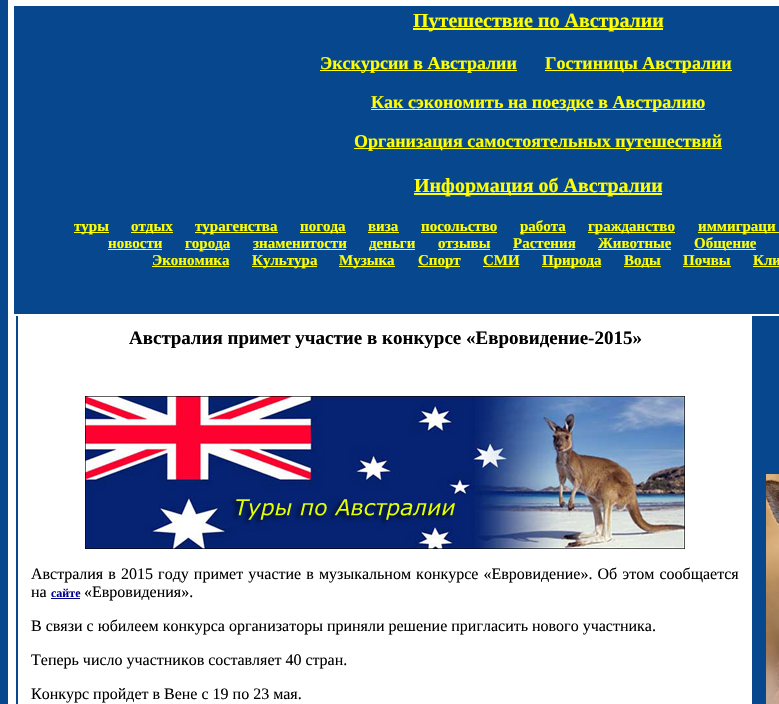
void draw(SkCanvas* canvas) {
    SkPaint paint;
    paint.setAntiAlias(true);
    auto face = [&](const char* family, int weight, float size, bool italic = false) {
        SkFontStyle style(weight, SkFontStyle::kNormal_Width,
            italic ? SkFontStyle::kItalic_Slant : SkFontStyle::kUpright_Slant);
        SkFont result(fontMgr->matchFamilyStyle(family, style), size);
        result.setSubpixel(true);
        return result;
    };
    auto write = [&](const char* s, float x, float y, const SkFont& font, SkColor color) {
        SkPaint ink(SkColor4f::FromColor(color));
        ink.setAntiAlias(true);
        canvas->drawString(s, x, y, font, ink);
    };
    auto writeSpaced = [&](const char* s, float x, float y, const SkFont& font, const SkPaint& ink, float letter, float word) {
        std::vector<SkGlyphID> glyphs(font.countText(s, strlen(s), SkTextEncoding::kUTF8));
        std::vector<float> xs(glyphs.size());
        font.textToGlyphs(s, strlen(s), SkTextEncoding::kUTF8, glyphs);
        font.getXPos(glyphs, xs, x);
        float extra = 0;
        for (size_t i = 0; i < glyphs.size(); i++) {
            xs[i] += extra;
            extra += letter + word * (glyphs[i] == font.unicharToGlyph(' '));
        }
        canvas->drawTextBlob(SkTextBlob::MakeFromPosHGlyphs(glyphs, xs, y, font), 0, 0, ink);
    };
    auto block = [&](float x, float y, float w, float h, SkColor color) {
        SkPaint ink(SkColor4f::FromColor(color));
        ink.setAntiAlias(true);
        canvas->drawRect(SkRect::MakeXYWH(x, y, w, h), ink);
    };
    auto paste = [&](const char* path, float x, float y, float w, float h) {
        auto image = SkImages::DeferredFromEncodedData(SkData::MakeFromFileName(path));
        canvas->drawImageRect(image, SkRect::MakeXYWH(x, y, w, h), SkSamplingOptions());
    };
    canvas->clear(SkColorSetRGB(6, 71, 142));
    block(8, 0, 771, 704, SK_ColorWHITE);
    block(14, 6, 765, 308, SkColorSetRGB(7, 71, 142));
    block(413, 28, 250, 2, SkColorSetRGB(255, 255, 0));
    auto kFont1 = face("Liberation Serif", 700, 20);
    write("Путешествие по Австралии", 413, 27, kFont1, SkColorSetRGB(255, 255, 0));
    block(320, 70, 197, 1, SkColorSetRGB(255, 255, 0));
    auto kFont2 = face("Liberation Serif", 700, 18);
    write("Экскурсии в Австралии", 320, 69, kFont2, SkColorSetRGB(255, 255, 0));
    block(545, 70, 187, 1, SkColorSetRGB(255, 255, 0));
    write("Гостиницы Австралии", 545, 69, kFont2, SkColorSetRGB(255, 255, 0));
    block(371, 109, 334, 1, SkColorSetRGB(255, 255, 0));
    write("Как сэкономить на поездке в Австралию", 371, 108, kFont2, SkColorSetRGB(255, 255, 0));
    block(354, 148, 368, 1, SkColorSetRGB(255, 255, 0));
    write("Организация самостоятельных путешествий", 354, 147, kFont2, SkColorSetRGB(255, 255, 0));
    block(414, 193, 248, 2, SkColorSetRGB(255, 255, 0));
    write("Информация об Австралии", 414, 192, kFont1, SkColorSetRGB(255, 255, 0));
    block(74, 232, 35, 1, SkColorSetRGB(255, 255, 0));
    auto kFont3 = face("Liberation Serif", 700, 15);
    write("туры", 74, 231, kFont3, SkColorSetRGB(255, 255, 0));
    block(131, 232, 42, 1, SkColorSetRGB(255, 255, 0));
    write("отдых", 131, 231, kFont3, SkColorSetRGB(255, 255, 0));
    block(195, 232, 83, 1, SkColorSetRGB(255, 255, 0));
    write("турагенства", 195, 231, kFont3, SkColorSetRGB(255, 255, 0));
    block(300, 232, 46, 1, SkColorSetRGB(255, 255, 0));
    write("погода", 300, 231, kFont3, SkColorSetRGB(255, 255, 0));
    write("виза", 368, 231, kFont3, SkColorSetRGB(255, 255, 0));
    block(368, 232, 31, 1, SkColorSetRGB(255, 255, 0));
    write("посольство", 421, 231, kFont3, SkColorSetRGB(255, 255, 0));
    block(421, 232, 76, 1, SkColorSetRGB(255, 255, 0));
    block(520, 232, 46, 1, SkColorSetRGB(255, 255, 0));
    write("работа", 520, 231, kFont3, SkColorSetRGB(255, 255, 0));
    block(588, 232, 87, 1, SkColorSetRGB(255, 255, 0));
    write("гражданство", 588, 231, kFont3, SkColorSetRGB(255, 255, 0));
    block(698, 232, 81, 1, SkColorSetRGB(255, 255, 0));
    write("иммиграци", 698, 231, kFont3, SkColorSetRGB(255, 255, 0));
    write("новости", 108, 248, kFont3, SkColorSetRGB(255, 255, 0));
    block(108, 249, 54, 1, SkColorSetRGB(255, 255, 0));
    block(185, 249, 45, 1, SkColorSetRGB(255, 255, 0));
    write("города", 185, 248, kFont3, SkColorSetRGB(255, 255, 0));
    write("знаменитости", 253, 248, kFont3, SkColorSetRGB(255, 255, 0));
    block(253, 249, 93, 1, SkColorSetRGB(255, 255, 0));
    block(369, 249, 46, 1, SkColorSetRGB(255, 255, 0));
    write("деньги", 369, 248, kFont3, SkColorSetRGB(255, 255, 0));
    write("отзывы", 438, 248, kFont3, SkColorSetRGB(255, 255, 0));
    block(438, 249, 52, 1, SkColorSetRGB(255, 255, 0));
    write("Растения", 513, 248, kFont3, SkColorSetRGB(255, 255, 0));
    block(513, 249, 62, 1, SkColorSetRGB(255, 255, 0));
    write("Животные", 598, 248, kFont3, SkColorSetRGB(255, 255, 0));
    block(598, 249, 73, 1, SkColorSetRGB(255, 255, 0));
    block(694, 249, 62, 1, SkColorSetRGB(255, 255, 0));
    write("Общение", 694, 248, kFont3, SkColorSetRGB(255, 255, 0));
    write("Экономика", 152, 265, kFont3, SkColorSetRGB(255, 255, 0));
    block(152, 266, 77, 1, SkColorSetRGB(255, 255, 0));
    block(252, 266, 65, 1, SkColorSetRGB(255, 255, 0));
    write("Культура", 252, 265, kFont3, SkColorSetRGB(255, 255, 0));
    block(339, 266, 56, 1, SkColorSetRGB(255, 255, 0));
    write("Музыка", 339, 265, kFont3, SkColorSetRGB(255, 255, 0));
    block(418, 266, 42, 1, SkColorSetRGB(255, 255, 0));
    write("Спорт", 418, 265, kFont3, SkColorSetRGB(255, 255, 0));
    write("СМИ", 483, 265, kFont3, SkColorSetRGB(255, 255, 0));
    block(483, 266, 36, 1, SkColorSetRGB(255, 255, 0));
    block(542, 266, 59, 1, SkColorSetRGB(255, 255, 0));
    write("Природа", 542, 265, kFont3, SkColorSetRGB(255, 255, 0));
    block(624, 266, 37, 1, SkColorSetRGB(255, 255, 0));
    write("Воды", 624, 265, kFont3, SkColorSetRGB(255, 255, 0));
    write("Почвы", 683, 265, kFont3, SkColorSetRGB(255, 255, 0));
    block(683, 266, 48, 1, SkColorSetRGB(255, 255, 0));
    write("Кли", 753, 265, kFont3, SkColorSetRGB(255, 255, 0));
    block(753, 266, 26, 1, SkColorSetRGB(255, 255, 0));
    block(16, 316, 2, 388, SkColorSetRGB(7, 71, 142));
    auto kFont4 = face("Liberation Serif", 700, 19);
    write("Австралия примет участие в конкурсе «Евровидение-2015»", 129, 344, kFont4, SK_ColorBLACK);
    paste("pic1.png", 85, 396, 600, 153);
    auto kFont5 = face("Liberation Serif", 400, 16);
    paint.setColor(SK_ColorBLACK);
    writeSpaced("Австралия в 2015 году примет участие в музыкальном конкурсе «Евровидение». Об этом сообщается", 31, 579, kFont5, paint, 0, 1.1f);
    write("на", 31, 597, kFont5, SK_ColorBLACK);
    auto kFont6 = face("Liberation Serif", 700, 12);
    write("сайте", 51, 597, kFont6, SkColorSetRGB(0, 0, 139));
    block(51, 598, 29, 1, SkColorSetRGB(0, 0, 139));
    write("«Евровидения».", 84, 597, kFont5, SK_ColorBLACK);
    write("В связи с юбилеем конкурса организаторы приняли решение пригласить нового участника.", 31, 631, kFont5, SK_ColorBLACK);
    write("Теперь число участников составляет 40 стран.", 31, 665, kFont5, SK_ColorBLACK);
    write("Конкурс пройдет в Вене с 19 по 23 мая.", 31, 699, kFont5, SK_ColorBLACK);
    block(752, 316, 27, 388, SkColorSetRGB(7, 71, 142));
    paste("pic2.png", 766, 474, 13, 230);
}
